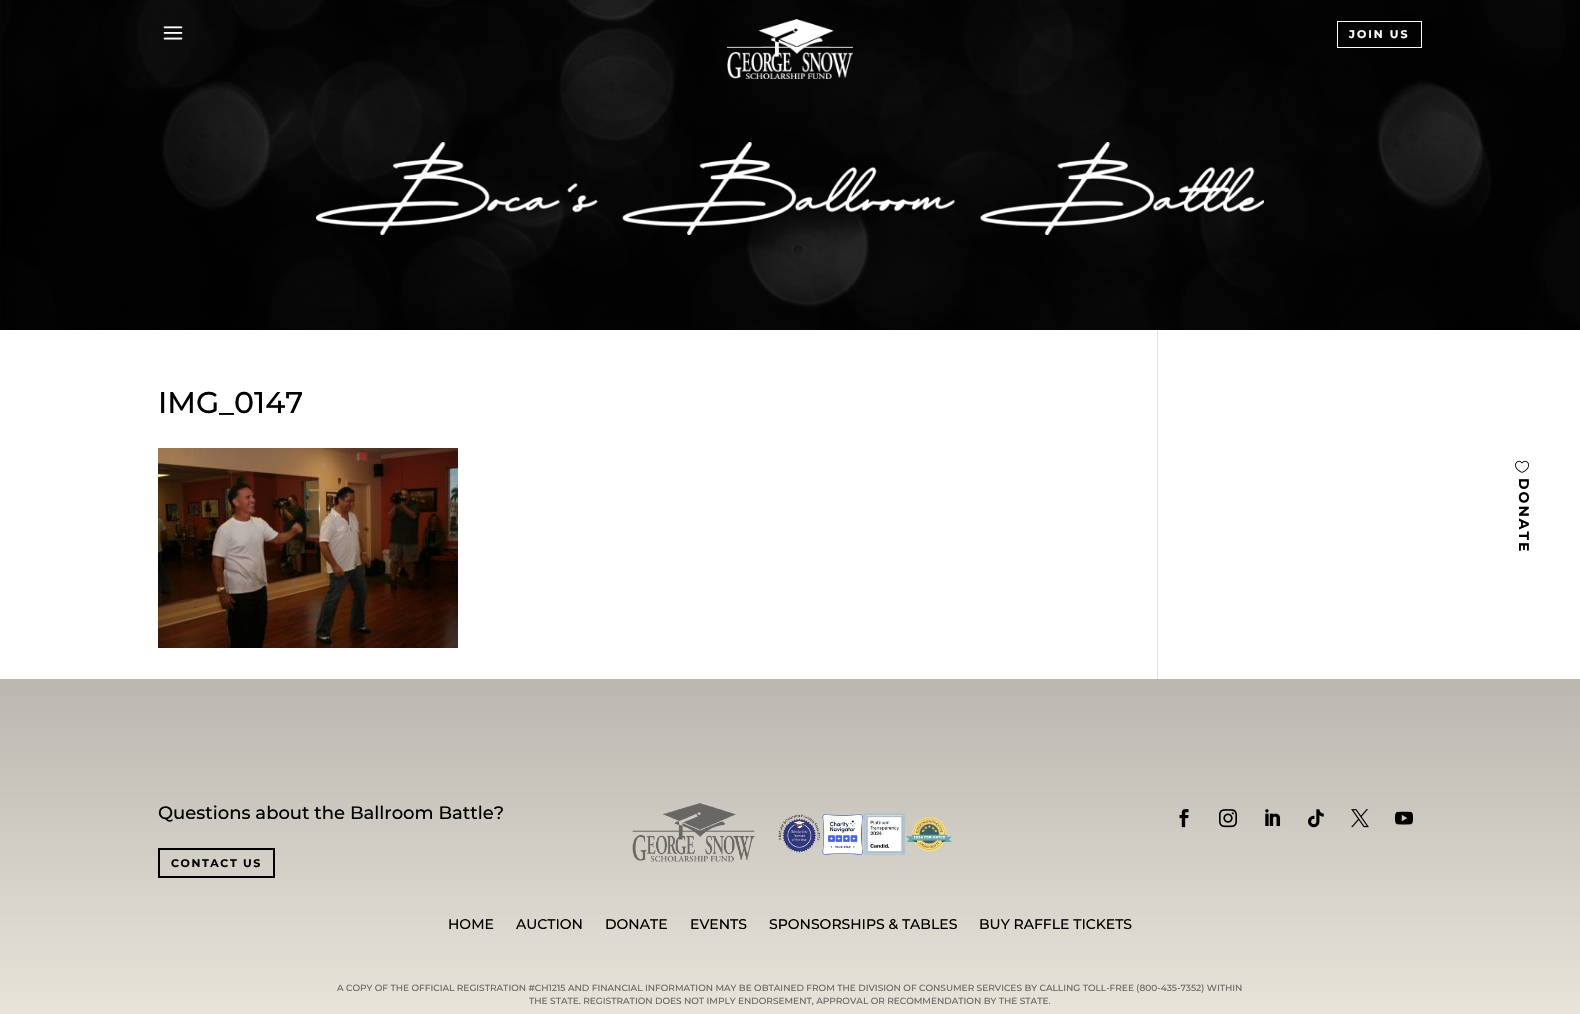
void draw(SkCanvas* canvas) {
    SkPaint paint;
    paint.setAntiAlias(true);
    auto face = [&](const char* family, int weight, float size, bool italic = false) {
        SkFontStyle style(weight, SkFontStyle::kNormal_Width,
            italic ? SkFontStyle::kItalic_Slant : SkFontStyle::kUpright_Slant);
        SkFont result(fontMgr->matchFamilyStyle(family, style), size);
        result.setSubpixel(true);
        return result;
    };
    auto write = [&](const char* s, float x, float y, const SkFont& font, SkColor color) {
        SkPaint ink(SkColor4f::FromColor(color));
        ink.setAntiAlias(true);
        canvas->drawString(s, x, y, font, ink);
    };
    auto writeSpaced = [&](const char* s, float x, float y, const SkFont& font, const SkPaint& ink, float letter, float word) {
        std::vector<SkGlyphID> glyphs(font.countText(s, strlen(s), SkTextEncoding::kUTF8));
        std::vector<float> xs(glyphs.size());
        font.textToGlyphs(s, strlen(s), SkTextEncoding::kUTF8, glyphs);
        font.getXPos(glyphs, xs, x);
        float extra = 0;
        for (size_t i = 0; i < glyphs.size(); i++) {
            xs[i] += extra;
            extra += letter + word * (glyphs[i] == font.unicharToGlyph(' '));
        }
        canvas->drawTextBlob(SkTextBlob::MakeFromPosHGlyphs(glyphs, xs, y, font), 0, 0, ink);
    };
    auto block = [&](float x, float y, float w, float h, SkColor color) {
        SkPaint ink(SkColor4f::FromColor(color));
        ink.setAntiAlias(true);
        canvas->drawRect(SkRect::MakeXYWH(x, y, w, h), ink);
    };
    auto paste = [&](const char* path, float x, float y, float w, float h) {
        auto image = SkImages::DeferredFromEncodedData(SkData::MakeFromFileName(path));
        canvas->drawImageRect(image, SkRect::MakeXYWH(x, y, w, h), SkSamplingOptions());
    };
    canvas->clear(SK_ColorWHITE);
    paste("pic1.png", 0, 0, 1580, 330);
    paste("pic2.png", 316, 142, 948, 93);
    paste("pic3.png", 163, 26, 20, 14);
    paste("pic4.png", 727, 19, 126, 60);
    paint.setStyle(SkPaint::kStroke_Style);
    paint.setStrokeWidth(1);
    paint.setColor(SK_ColorWHITE);
    canvas->drawRect(SkRect::MakeXYWH(1337.5f, 21.5f, 84, 26), paint);
    auto kFont1 = face("Montserrat", 700, 11);
    paint.setStyle(SkPaint::kFill_Style);
    writeSpaced("JOIN US", 1349, 38, kFont1, paint, 2, 0);
    paste("pic5.png", 1515, 460, 14, 13);
    auto kFont2 = face("Montserrat", 700, 14);
    paint.setColor(SK_ColorBLACK);
    canvas->save();
    canvas->rotate(90, 1519, 478);
    writeSpaced("DONATE", 1519, 478, kFont2, paint, 2, 0);
    canvas->restore();
    auto kFont3 = face("Montserrat", 500, 30);
    write("IMG_0147", 158, 413, kFont3, SK_ColorBLACK);
    paste("pic6.png", 158, 448, 300, 200);
    block(1157, 330, 1, 349, SkColorSetRGB(226, 226, 226));
    {
        const SkColor colors[] = {SkColorSetRGB(185, 183, 176), SkColorSetRGB(246, 240, 229)};
        const float stops[] = {0, 1};
        const SkPoint ends[] = {{790, 679}, {790, 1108}};
        paint.setShader(SkGradientShader::MakeLinear(ends, colors, stops, 2, SkTileMode::kClamp));
        paint.setAlpha(255);
    }
    canvas->drawRect(SkRect::MakeXYWH(0, 679, 1580, 335), paint);
    auto kFont4 = face("Montserrat", 500, 18);
    write("Questions about the Ballroom Battle?", 158, 819, kFont4, SK_ColorBLACK);
    paint.setStyle(SkPaint::kStroke_Style);
    paint.setStrokeWidth(2);
    paint.setShader(nullptr);
    paint.setColor(SK_ColorBLACK);
    canvas->drawRect(SkRect::MakeXYWH(159, 849, 115, 28), paint);
    paint.setStyle(SkPaint::kFill_Style);
    writeSpaced("CONTACT US", 171, 867, kFont1, paint, 1.6f, 0);
    paste("pic7.png", 632, 803, 320, 59);
    paste("pic8.png", 1179, 809, 10, 19);
    paste("pic9.png", 1219, 809, 18, 19);
    paste("pic10.png", 1265, 809, 16, 17);
    paste("pic11.png", 1308, 809, 16, 19);
    paste("pic12.png", 1351, 809, 18, 19);
    paste("pic13.png", 1395, 811, 18, 14);
    auto kFont5 = face("Montserrat", 500, 14);
    write("HOME", 448, 929, kFont5, SK_ColorBLACK);
    write("AUCTION", 516, 929, kFont5, SK_ColorBLACK);
    write("DONATE", 605, 929, kFont5, SK_ColorBLACK);
    write("EVENTS", 690, 929, kFont5, SK_ColorBLACK);
    write("SPONSORSHIPS & TABLES", 769, 929, kFont5, SK_ColorBLACK);
    write("BUY RAFFLE TICKETS", 979, 929, kFont5, SK_ColorBLACK);
    auto kFont6 = face("Montserrat", 500, 9);
    write("A COPY OF THE OFFICIAL REGISTRATION #CH1215 AND FINANCIAL INFORMATION MAY BE OBTAINED FROM THE DIVISION OF CONSUMER SERVICES BY CALLING TOLL-FREE (800-435-7352) WITHIN", 337, 991, kFont6, SkColorSetRGB(104, 103, 101));
    write("THE STATE. REGISTRATION DOES NOT IMPLY ENDORSEMENT, APPROVAL OR RECOMMENDATION BY THE STATE.", 529, 1004, kFont6, SkColorSetRGB(104, 103, 101));
}
